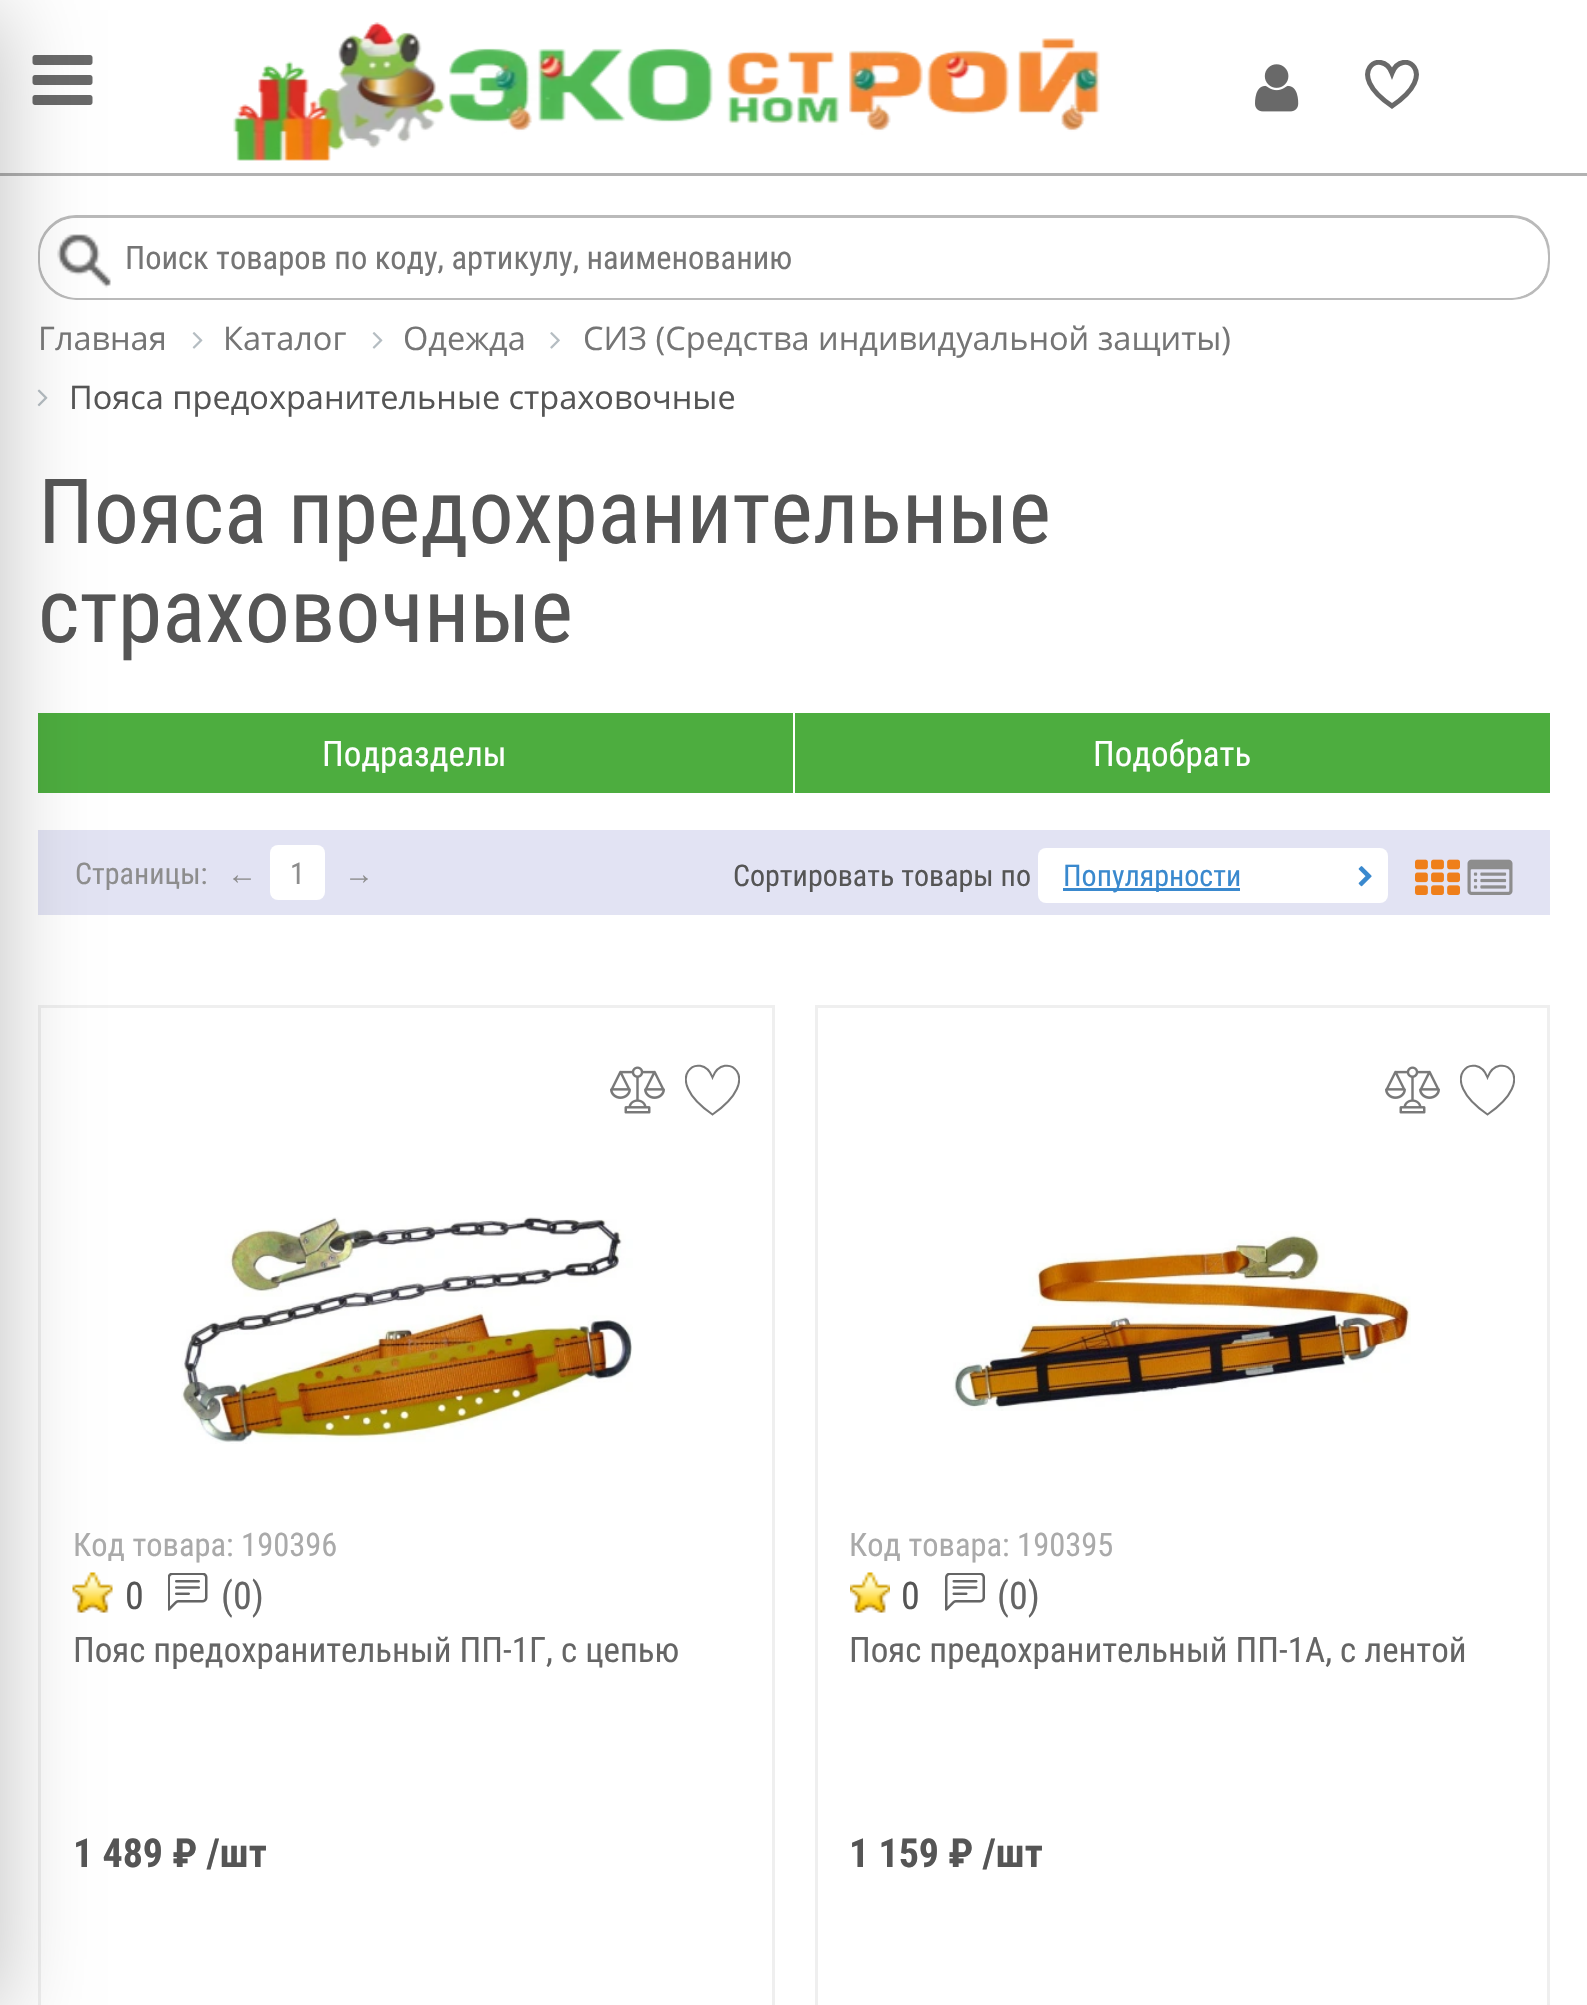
void draw(SkCanvas* canvas) {
    SkPaint paint;
    paint.setAntiAlias(true);
    auto face = [&](const char* family, int weight, float size, bool italic = false) {
        SkFontStyle style(weight, SkFontStyle::kNormal_Width,
            italic ? SkFontStyle::kItalic_Slant : SkFontStyle::kUpright_Slant);
        SkFont result(fontMgr->matchFamilyStyle(family, style), size);
        result.setSubpixel(true);
        return result;
    };
    auto write = [&](const char* s, float x, float y, const SkFont& font, SkColor color) {
        SkPaint ink(SkColor4f::FromColor(color));
        ink.setAntiAlias(true);
        canvas->drawString(s, x, y, font, ink);
    };
    auto block = [&](float x, float y, float w, float h, SkColor color) {
        SkPaint ink(SkColor4f::FromColor(color));
        ink.setAntiAlias(true);
        canvas->drawRect(SkRect::MakeXYWH(x, y, w, h), ink);
    };
    auto card = [&](float x, float y, float w, float h, float radius, SkColor color) {
        SkPaint ink(SkColor4f::FromColor(color));
        ink.setAntiAlias(true);
        canvas->drawRoundRect(SkRect::MakeXYWH(x, y, w, h), radius, radius, ink);
    };
    auto paste = [&](const char* path, float x, float y, float w, float h) {
        auto image = SkImages::DeferredFromEncodedData(SkData::MakeFromFileName(path));
        canvas->drawImageRect(image, SkRect::MakeXYWH(x, y, w, h), SkSamplingOptions());
    };
    canvas->clear(SK_ColorWHITE);
    paste("pic1.png", 32, 55, 61, 50);
    block(0, 173, 1587, 3, SkColorSetRGB(178, 178, 178));
    paint.setStyle(SkPaint::kStroke_Style);
    paint.setStrokeWidth(3);
    paint.setColor(SkColorSetRGB(186, 186, 186));
    canvas->drawRoundRect(SkRect::MakeXYWH(39.5f, 216.5f, 1509, 82), 36.5f, 36.5f, paint);
    card(40, 218, 1508, 80, 38, SK_ColorWHITE);
    paint.setStyle(SkPaint::kFill_Style);
    paint.setColor(SK_ColorWHITE);
    canvas->drawPath(SkPathBuilder(SkPathFillType::kEvenOdd).moveTo(78, 218).lineTo(1510, 218).cubicTo(1531, 218, 1548, 234, 1548, 255).lineTo(1548, 260).cubicTo(1548, 281, 1531, 298, 1510, 298).lineTo(78, 298).cubicTo(57, 298, 40, 281, 40, 260).lineTo(40, 255).cubicTo(40, 234, 57, 218, 78, 218).close().moveTo(78, 220).lineTo(1510, 220).cubicTo(1531, 220, 1548, 236, 1548, 255).lineTo(1548, 260).cubicTo(1548, 279, 1531, 295, 1510, 295).lineTo(78, 295).cubicTo(58, 295, 42, 279, 42, 260).lineTo(42, 255).cubicTo(42, 236, 58, 220, 78, 220).close().detach(), paint);
    paste("pic4.png", 57, 234, 54, 54);
    paste("pic7.png", 37, 389, 11, 18);
    block(38, 713, 755, 80, SkColorSetRGB(77, 173, 63));
    block(38, 830, 1512, 85, SkColorSetRGB(226, 227, 243));
    paint.setStyle(SkPaint::kStroke_Style);
    paint.setColor(SkColorSetRGB(239, 239, 239));
    canvas->drawRect(SkRect::MakeXYWH(39.5f, 1006.5f, 734, 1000), paint);
    paste("pic13.png", 72, 1572, 41, 41);
    paint.setStyle(SkPaint::kFill_Style);
    paint.setColor(SkColorSetARGB(64, 0, 0, 0));
    paint.setMaskFilter(SkMaskFilter::MakeBlur(kNormal_SkBlurStyle, 45));
    canvas->drawRect(SkRect::MakeXYWH(-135, 10, 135, 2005), paint);
    paint.setMaskFilter(nullptr);
    paste("pic2.png", 233, 22, 867, 139);
    paste("pic3.png", 1255, 64, 44, 48);
    canvas->save();
    canvas->clipRect(SkRect::MakeXYWH(1365, 60, 55, 55));
    paint.setStyle(SkPaint::kStroke_Style);
    paint.setStrokeWidth(5);
    paint.setColor(SkColorSetRGB(105, 105, 105));
    canvas->drawPath(SkPathBuilder().moveTo(1392, 73).cubicTo(1402, 47, 1441.5f, 73, 1392, 106).cubicTo(1342.5f, 73, 1382, 47, 1392, 73).close().detach(), paint);
    canvas->restore();
    auto kFont1 = face("Roboto Condensed", 400, 32.5f);
    write("Поиск товаров по коду, артикулу, наименованию", 125, 269, kFont1, SkColorSetRGB(117, 117, 117));
    auto kFont2 = face("Open Sans", 400, 32.5f);
    write("Главная", 38, 350, kFont2, SkColorSetRGB(117, 117, 117));
    paste("pic5.png", 192, 332, 11, 17);
    write("Каталог", 223, 350, kFont2, SkColorSetRGB(117, 117, 117));
    paste("pic5.png", 372, 332, 11, 17);
    write("Одежда", 403, 350, kFont2, SkColorSetRGB(117, 117, 117));
    paste("pic6.png", 550, 332, 10, 17);
    write("СИЗ (Средства индивидуальной защиты)", 583, 350, kFont2, SkColorSetRGB(117, 117, 117));
    write("Пояса предохранительные страховочные", 69, 409, kFont2, SkColorSetRGB(85, 85, 85));
    auto kFont3 = face("Roboto Condensed", 400, 90);
    write("Пояса предохранительные", 38, 543, kFont3, SkColorSetRGB(85, 85, 85));
    write("страховочные", 38, 642, kFont3, SkColorSetRGB(85, 85, 85));
    auto kFont4 = face("Roboto Condensed", 400, 35);
    write("Подразделы", 322, 766, kFont4, SK_ColorWHITE);
    block(795, 713, 755, 80, SkColorSetRGB(77, 173, 63));
    write("Подобрать", 1093, 766, kFont4, SK_ColorWHITE);
    auto kFont5 = face("Roboto Condensed", 400, 30);
    write("Страницы:", 75, 884, kFont5, SkColorSetRGB(141, 141, 141));
    auto kFont6 = face("Liberation Sans", 400, 30);
    write("←", 227, 884, kFont6, SkColorSetRGB(141, 141, 141));
    card(270, 845, 55, 55, 8, SK_ColorWHITE);
    write("1", 290, 884, kFont5, SkColorSetRGB(141, 141, 141));
    write("→", 344, 884, kFont6, SkColorSetRGB(141, 141, 141));
    write("Сортировать товары по", 733, 886, kFont5, SkColorSetRGB(85, 85, 85));
    card(1038, 848, 350, 55, 8, SK_ColorWHITE);
    block(1063, 888, 177, 3, SkColorSetRGB(58, 137, 206));
    write("Популярности", 1063, 886, kFont5, SkColorSetRGB(58, 137, 206));
    paste("pic8.png", 1358, 866, 14, 21);
    paste("pic9.png", 1415, 859, 45, 36);
    paste("pic10.png", 1467, 859, 46, 36);
    paste("pic11.png", 610, 1066, 55, 48);
    canvas->save();
    canvas->clipRect(SkRect::MakeXYWH(685, 1063, 55, 55));
    paint.setStrokeWidth(2);
    paint.setColor(SkColorSetRGB(121, 121, 121));
    canvas->drawPath(SkPathBuilder().moveTo(712.5f, 1077.5f).cubicTo(723.5f, 1048.5f, 766.5f, 1077.5f, 712.5f, 1114.5f).cubicTo(658.5f, 1077.5f, 701.5f, 1048.5f, 712.5f, 1077.5f).close().detach(), paint);
    canvas->restore();
    paste("pic12.png", 181, 1217, 452, 227);
    write("Код товара: 190396", 73, 1556, kFont1, SkColorSetRGB(170, 170, 170));
    auto kFont7 = face("Roboto Condensed", 400, 38);
    write("0", 125, 1609, kFont7, SkColorSetRGB(85, 85, 85));
    paste("pic14.png", 168, 1573, 40, 38);
    write("(0)", 221, 1609, kFont7, SkColorSetRGB(101, 101, 101));
    write("Пояс предохранительный ПП-1Г, с цепью", 73, 1662, kFont4, SkColorSetRGB(101, 101, 101));
    auto kFont8 = face("Roboto Condensed", 700, 40);
    write("1 489 ₽ /шт", 73, 1867, kFont8, SkColorSetRGB(85, 85, 85));
    paint.setStrokeWidth(3);
    paint.setColor(SkColorSetRGB(239, 239, 239));
    canvas->drawRect(SkRect::MakeXYWH(816.5f, 1006.5f, 732, 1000), paint);
    paste("pic11.png", 1385, 1066, 55, 48);
    canvas->save();
    canvas->clipRect(SkRect::MakeXYWH(1460, 1063, 55, 55));
    paint.setStrokeWidth(2);
    paint.setColor(SkColorSetRGB(121, 121, 121));
    canvas->drawPath(SkPathBuilder().moveTo(1487.5f, 1077.5f).cubicTo(1498.5f, 1048.5f, 1541.5f, 1077.5f, 1487.5f, 1114.5f).cubicTo(1433.5f, 1077.5f, 1476.5f, 1048.5f, 1487.5f, 1077.5f).close().detach(), paint);
    canvas->restore();
    paste("pic15.png", 953, 1231, 458, 180);
    write("Код товара: 190395", 849, 1556, kFont1, SkColorSetRGB(170, 170, 170));
    paste("pic16.png", 850, 1572, 40, 41);
    write("0", 901, 1609, kFont7, SkColorSetRGB(85, 85, 85));
    paste("pic17.png", 945, 1573, 40, 38);
    write("(0)", 997, 1609, kFont7, SkColorSetRGB(101, 101, 101));
    write("Пояс предохранительный ПП-1А, с лентой", 849, 1662, kFont4, SkColorSetRGB(101, 101, 101));
    write("1 159 ₽ /шт", 849, 1867, kFont8, SkColorSetRGB(85, 85, 85));
}
